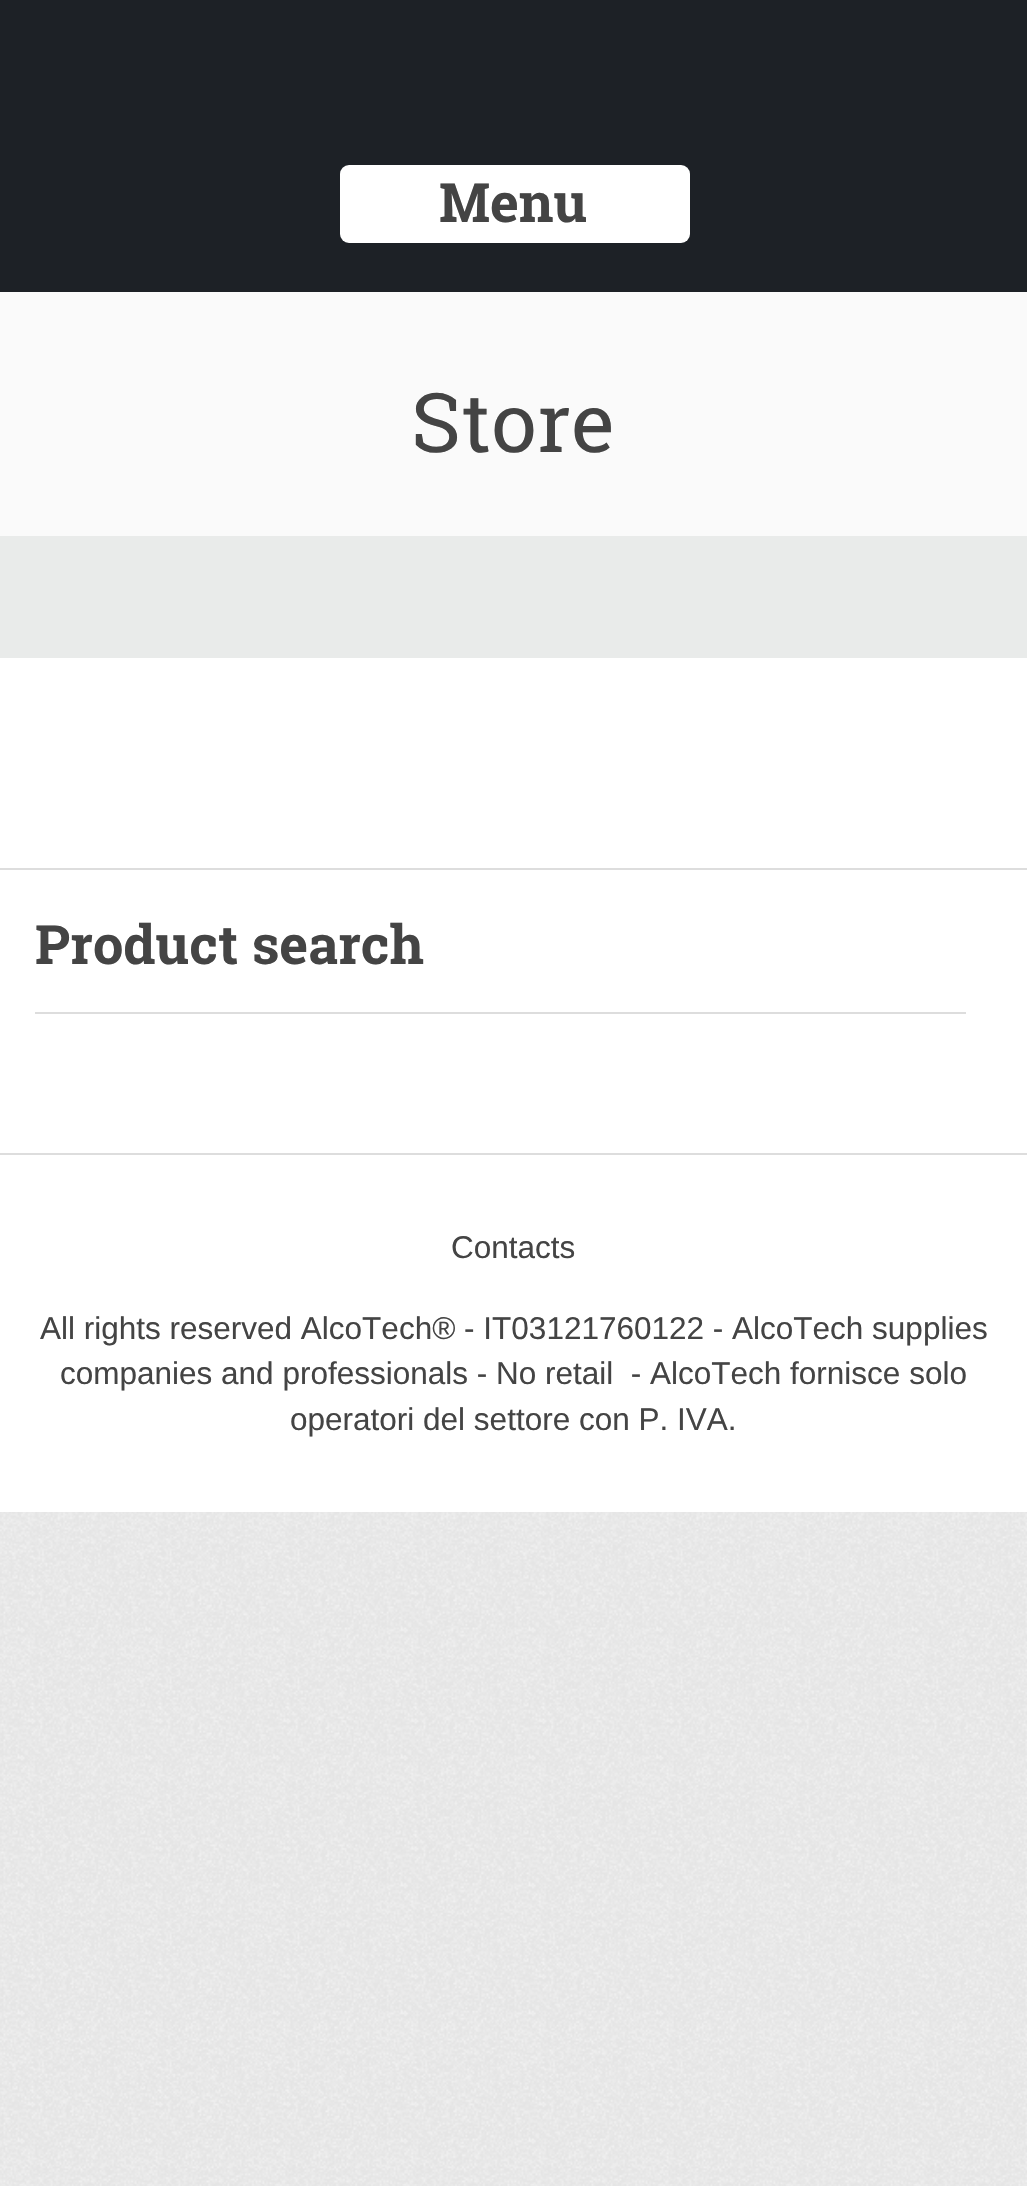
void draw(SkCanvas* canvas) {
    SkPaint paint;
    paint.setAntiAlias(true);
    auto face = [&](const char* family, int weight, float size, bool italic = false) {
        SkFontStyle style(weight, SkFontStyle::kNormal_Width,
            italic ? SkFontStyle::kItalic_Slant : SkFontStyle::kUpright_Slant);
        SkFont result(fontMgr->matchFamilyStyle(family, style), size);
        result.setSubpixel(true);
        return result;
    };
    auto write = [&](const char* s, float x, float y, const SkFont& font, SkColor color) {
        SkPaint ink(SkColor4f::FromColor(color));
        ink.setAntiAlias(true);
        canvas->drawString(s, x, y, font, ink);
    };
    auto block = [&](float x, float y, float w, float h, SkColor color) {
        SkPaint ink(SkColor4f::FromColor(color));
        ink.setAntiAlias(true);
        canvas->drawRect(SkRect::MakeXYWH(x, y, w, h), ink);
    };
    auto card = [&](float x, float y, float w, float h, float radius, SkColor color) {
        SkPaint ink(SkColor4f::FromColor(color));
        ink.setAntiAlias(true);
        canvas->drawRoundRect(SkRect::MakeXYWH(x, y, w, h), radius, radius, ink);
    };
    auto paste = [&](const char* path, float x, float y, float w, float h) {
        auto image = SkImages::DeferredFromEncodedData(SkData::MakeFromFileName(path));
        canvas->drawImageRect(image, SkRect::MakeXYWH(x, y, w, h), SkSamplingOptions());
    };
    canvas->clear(SkColorSetRGB(242, 242, 242));
    paste("pic1.png", 0, 1512, 1027, 674);
    block(0, 0, 1027, 292, SkColorSetRGB(29, 33, 38));
    card(340, 165, 350, 78, 9, SK_ColorWHITE);
    auto kFont1 = face("Roboto Slab", 700, 54.25f);
    write("Menu", 439, 222, kFont1, SkColorSetRGB(68, 68, 68));
    block(0, 658, 1027, 210, SK_ColorWHITE);
    block(0, 292, 1027, 244, SkColorSetRGB(250, 250, 250));
    auto kFont2 = face("Roboto Slab", 400, 82);
    write("Store", 411, 452, kFont2, SkColorSetRGB(68, 68, 68));
    block(0, 536, 1027, 122, SkColorSetRGB(233, 235, 234));
    block(0, 870, 1027, 642, SK_ColorWHITE);
    block(0, 868, 1027, 2, SkColorSetRGB(221, 221, 221));
    block(35, 1012, 931, 2, SkColorSetRGB(221, 221, 221));
    write("Product search", 35, 964, kFont1, SkColorSetRGB(68, 68, 68));
    block(0, 1153, 1027, 2, SkColorSetRGB(221, 221, 221));
    auto kFont3 = face("Liberation Sans", 400, 31.5f);
    write("Contacts", 451, 1258, kFont3, SkColorSetRGB(68, 68, 68));
    write("All rights reserved AlcoTech® - IT03121760122 - AlcoTech supplies", 40, 1339, kFont3, SkColorSetRGB(68, 68, 68));
    write("companies and professionals - No retail  - AlcoTech fornisce solo", 60, 1384, kFont3, SkColorSetRGB(68, 68, 68));
    write("operatori del settore con P. IVA.", 290, 1430, kFont3, SkColorSetRGB(68, 68, 68));
}
